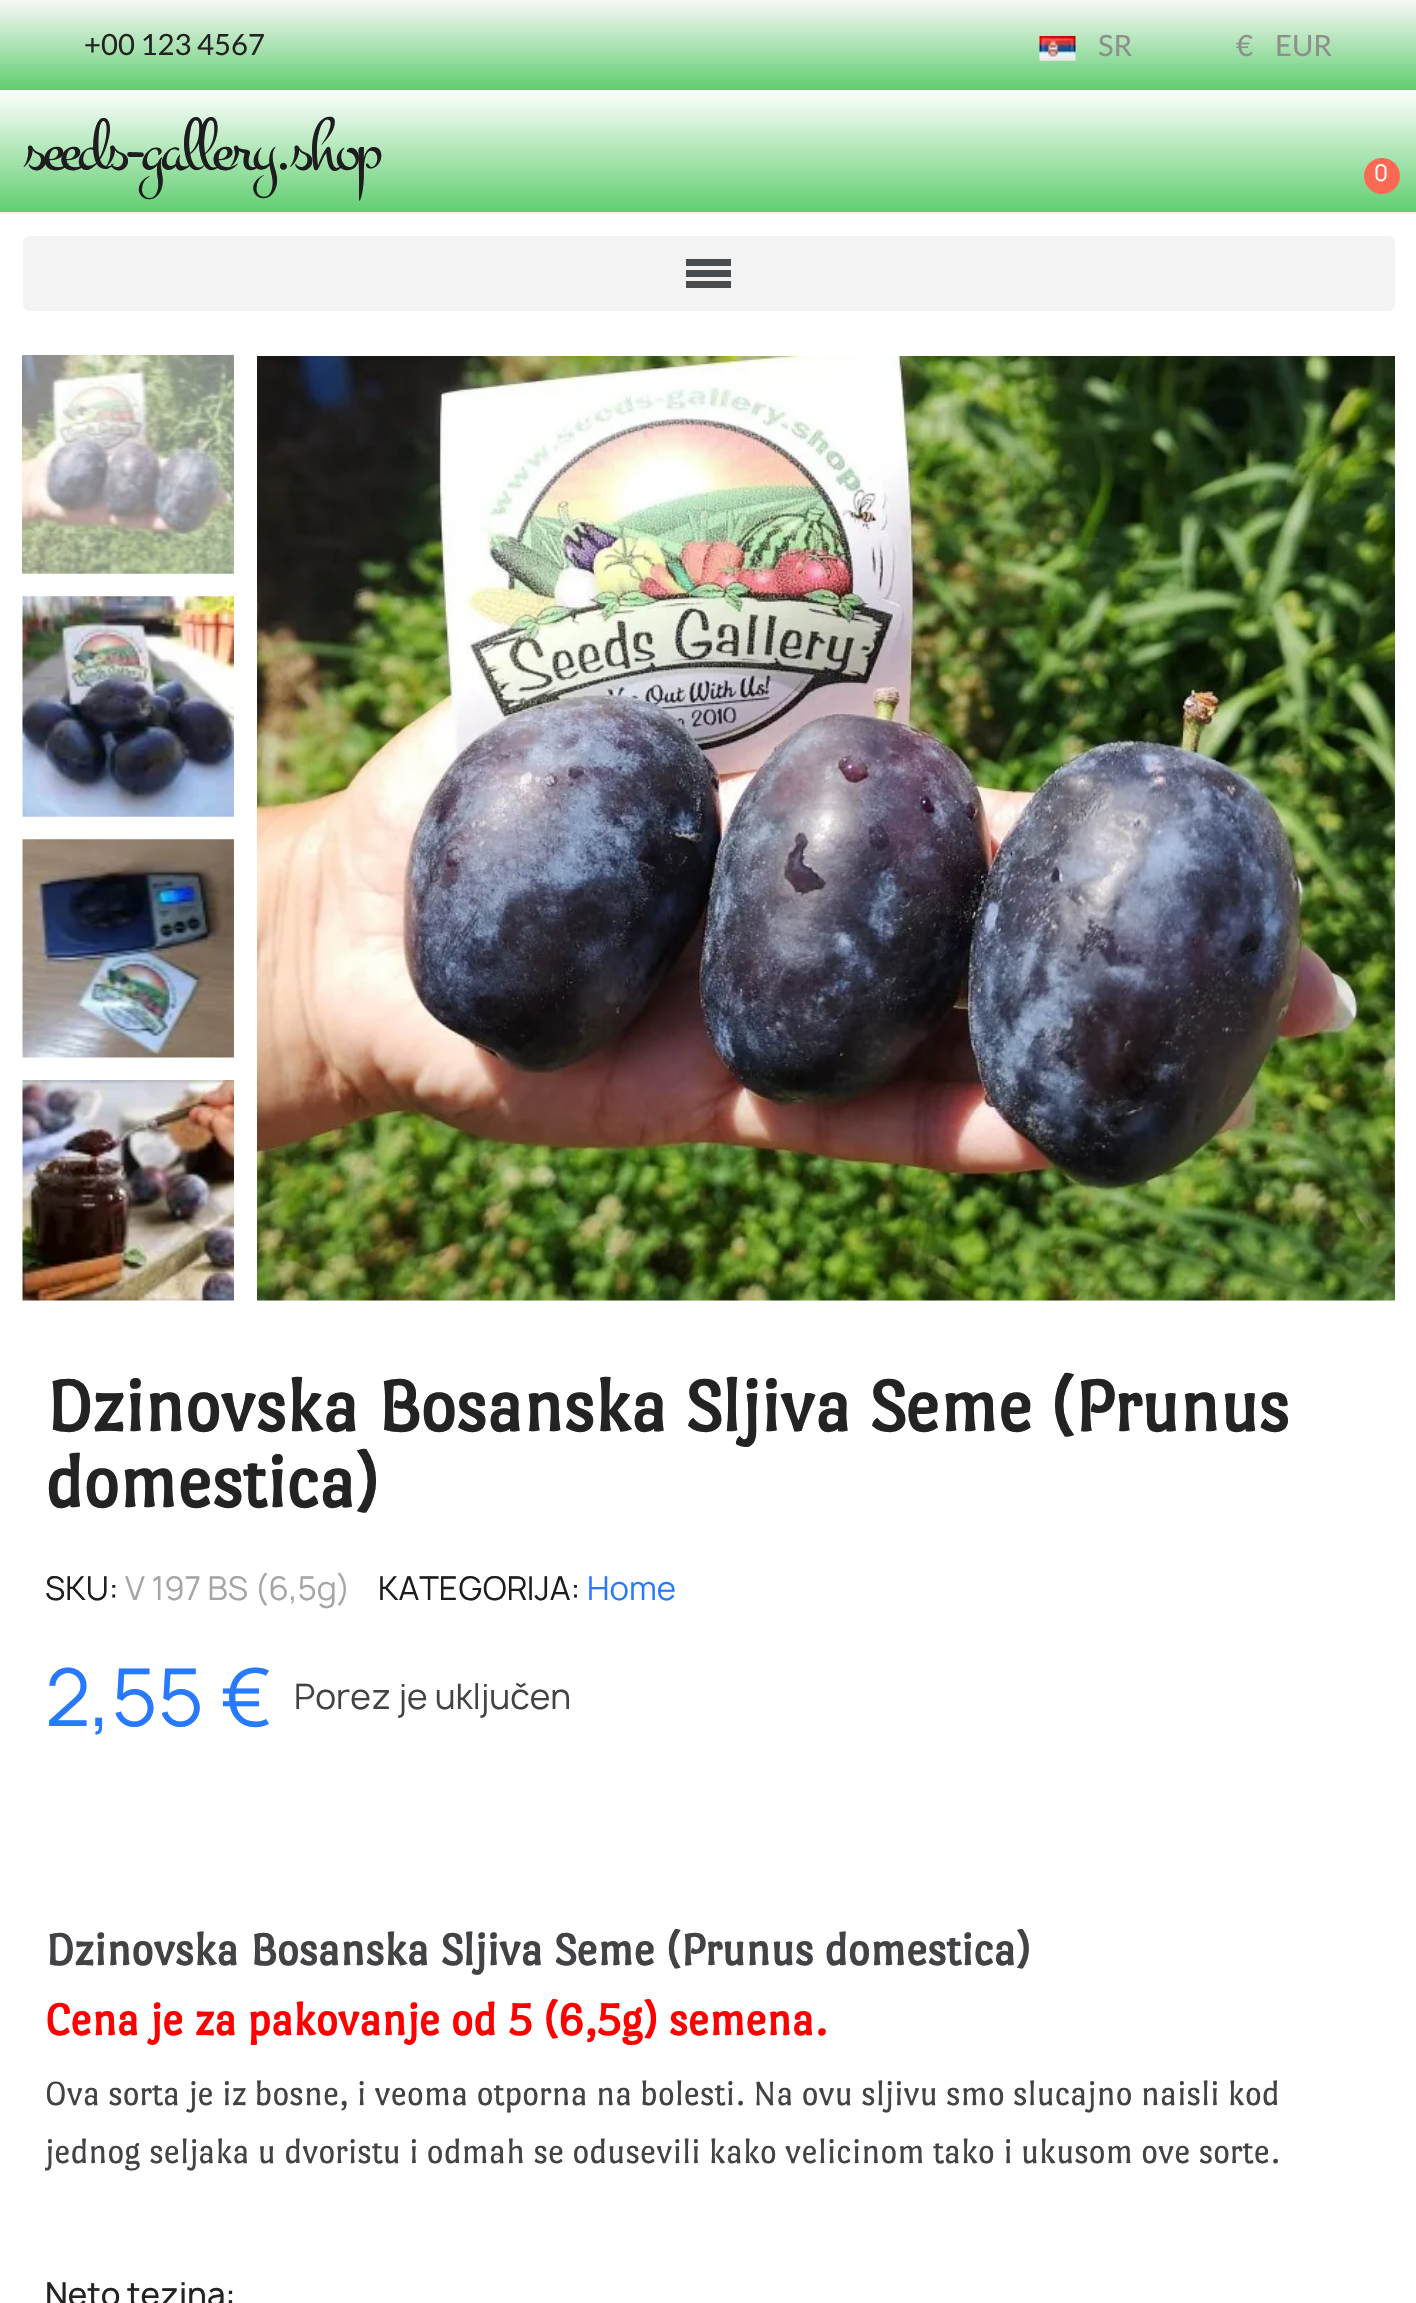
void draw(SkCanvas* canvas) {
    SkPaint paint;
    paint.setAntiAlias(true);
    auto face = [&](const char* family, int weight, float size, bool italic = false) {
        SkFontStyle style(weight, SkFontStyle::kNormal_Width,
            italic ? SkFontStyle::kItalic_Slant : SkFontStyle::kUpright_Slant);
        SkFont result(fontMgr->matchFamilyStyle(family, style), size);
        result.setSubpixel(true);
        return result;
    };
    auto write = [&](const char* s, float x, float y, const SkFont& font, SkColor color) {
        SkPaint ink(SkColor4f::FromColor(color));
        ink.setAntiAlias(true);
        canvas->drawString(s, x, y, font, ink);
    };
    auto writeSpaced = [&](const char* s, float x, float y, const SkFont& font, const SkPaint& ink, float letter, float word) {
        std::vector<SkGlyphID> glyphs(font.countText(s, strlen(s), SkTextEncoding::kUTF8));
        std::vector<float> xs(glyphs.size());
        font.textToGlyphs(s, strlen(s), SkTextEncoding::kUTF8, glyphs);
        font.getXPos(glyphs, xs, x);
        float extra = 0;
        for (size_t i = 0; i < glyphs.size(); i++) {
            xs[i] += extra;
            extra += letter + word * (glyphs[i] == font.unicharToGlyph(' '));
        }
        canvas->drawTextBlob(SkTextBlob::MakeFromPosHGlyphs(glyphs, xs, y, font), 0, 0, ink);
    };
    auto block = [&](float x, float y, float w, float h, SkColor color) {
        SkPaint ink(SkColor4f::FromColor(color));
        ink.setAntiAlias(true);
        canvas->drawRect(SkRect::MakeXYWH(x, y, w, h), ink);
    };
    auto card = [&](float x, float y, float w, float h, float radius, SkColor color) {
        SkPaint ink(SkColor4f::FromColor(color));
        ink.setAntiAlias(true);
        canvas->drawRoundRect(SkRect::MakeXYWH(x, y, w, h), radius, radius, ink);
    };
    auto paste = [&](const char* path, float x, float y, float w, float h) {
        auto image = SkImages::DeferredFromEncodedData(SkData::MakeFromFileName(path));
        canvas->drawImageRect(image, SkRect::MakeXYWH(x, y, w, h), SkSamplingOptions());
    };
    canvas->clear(SK_ColorWHITE);
    {
        const SkColor colors[] = {SkColorSetRGB(248, 248, 248), SkColorSetRGB(97, 206, 112)};
        const float stops[] = {0, 1};
        const SkPoint ends[] = {{709, 0}, {709, 90}};
        paint.setShader(SkGradientShader::MakeLinear(ends, colors, stops, 2, SkTileMode::kClamp));
        paint.setAlpha(255);
    }
    canvas->drawRect(SkRect::MakeXYWH(0, 0, 1416, 90), paint);
    auto kFont1 = face("Lato", 400, 29.25f);
    write("+00 123 4567", 84, 55, kFont1, SkColorSetRGB(35, 35, 35));
    paste("pic1.png", 1039, 36, 37, 25);
    write("SR", 1098, 56, kFont1, SkColorSetRGB(142, 142, 142));
    write("€", 1236, 56, kFont1, SkColorSetRGB(142, 142, 142));
    write("EUR", 1275, 56, kFont1, SkColorSetRGB(142, 142, 142));
    {
        const SkColor colors[] = {SK_ColorWHITE, SkColorSetRGB(97, 206, 112)};
        const float stops[] = {0, 1};
        const SkPoint ends[] = {{709, 90}, {709, 212}};
        paint.setShader(SkGradientShader::MakeLinear(ends, colors, stops, 2, SkTileMode::kClamp));
        paint.setAlpha(255);
    }
    canvas->drawRect(SkRect::MakeXYWH(0, 92, 1416, 120), paint);
    block(0, 212, 1416, 2, SkColorSetRGB(240, 242, 240));
    auto kFont2 = face("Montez", 400, 76.5f);
    paint.setShader(nullptr);
    paint.setColor(SkColorSetRGB(29, 29, 31));
    writeSpaced("seeds-gallery.shop", 23, 169, kFont2, paint, -4.75f, 0);
    paint.setColor(SkColorSetRGB(255, 104, 82));
    canvas->drawCircle(1382, 176, 18, paint);
    auto kFont3 = face("Manrope", 400, 22);
    write("0", 1374, 181, kFont3, SK_ColorWHITE);
    card(23, 236, 1372, 75, 7, SkColorSetRGB(243, 243, 243));
    block(686, 270, 45, 7, SkColorSetRGB(73, 76, 79));
    block(686, 259, 45, 7, SkColorSetRGB(73, 76, 79));
    block(686, 281, 45, 7, SkColorSetRGB(73, 76, 79));
    paste("pic2.png", 22, 355, 212, 219);
    paste("pic3.png", 22, 596, 212, 221);
    paste("pic4.png", 22, 839, 212, 219);
    paste("pic5.png", 22, 1080, 212, 221);
    paste("pic6.png", 257, 356, 1138, 945);
    auto kFont4 = face("Port Lligat Sans", 700, 76.5f);
    write("Dzinovska Bosanska Sljiva Seme (Prunus", 45, 1431, kFont4, SkColorSetRGB(35, 35, 35));
    write("domestica)", 45, 1507, kFont4, SkColorSetRGB(35, 35, 35));
    auto kFont5 = face("Manrope", 400, 31.5f);
    write("SKU:", 45, 1600, kFont5, SkColorSetRGB(29, 29, 31));
    write("V 197 BS (6,5g)", 125, 1600, kFont5, SkColorSetRGB(165, 165, 165));
    write("KATEGORIJA:", 378, 1600, kFont5, SkColorSetRGB(29, 29, 31));
    write("Home", 587, 1600, kFont5, SkColorSetRGB(40, 121, 254));
    auto kFont6 = face("Manrope", 400, 76.5f);
    write("2,55 €", 45, 1726, kFont6, SkColorSetRGB(40, 121, 254));
    auto kFont7 = face("Manrope", 400, 33.75f);
    write("Porez je uključen", 294, 1709, kFont7, SkColorSetRGB(67, 67, 71));
    auto kFont8 = face("Port Lligat Sans", 700, 47.25f);
    write("Dzinovska Bosanska Sljiva Seme (Prunus domestica)", 45, 1965, kFont8, SkColorSetRGB(67, 67, 71));
    write("Cena je za pakovanje od 5 (6,5g) semena.", 45, 2035, kFont8, SkColorSetRGB(255, 0, 0));
    auto kFont9 = face("Port Lligat Sans", 400, 36);
    write("Ova sorta je iz bosne, i veoma otporna na bolesti. Na ovu sljivu smo slucajno naisli kod", 45, 2105, kFont9, SkColorSetRGB(67, 67, 71));
    canvas->save();
    canvas->clipRect(SkRect::MakeXYWH(45, 1924, 1328, 256));
    write("jednog seljaka u dvoristu i odmah se odusevili kako velicinom tako i ukusom ove sorte.", 45, 2163, kFont9, SkColorSetRGB(67, 67, 71));
    canvas->restore();
    auto kFont10 = face("Manrope", 500, 31.5f);
    write("Neto tezina:", 45, 2306, kFont10, SkColorSetRGB(35, 35, 35));
}
